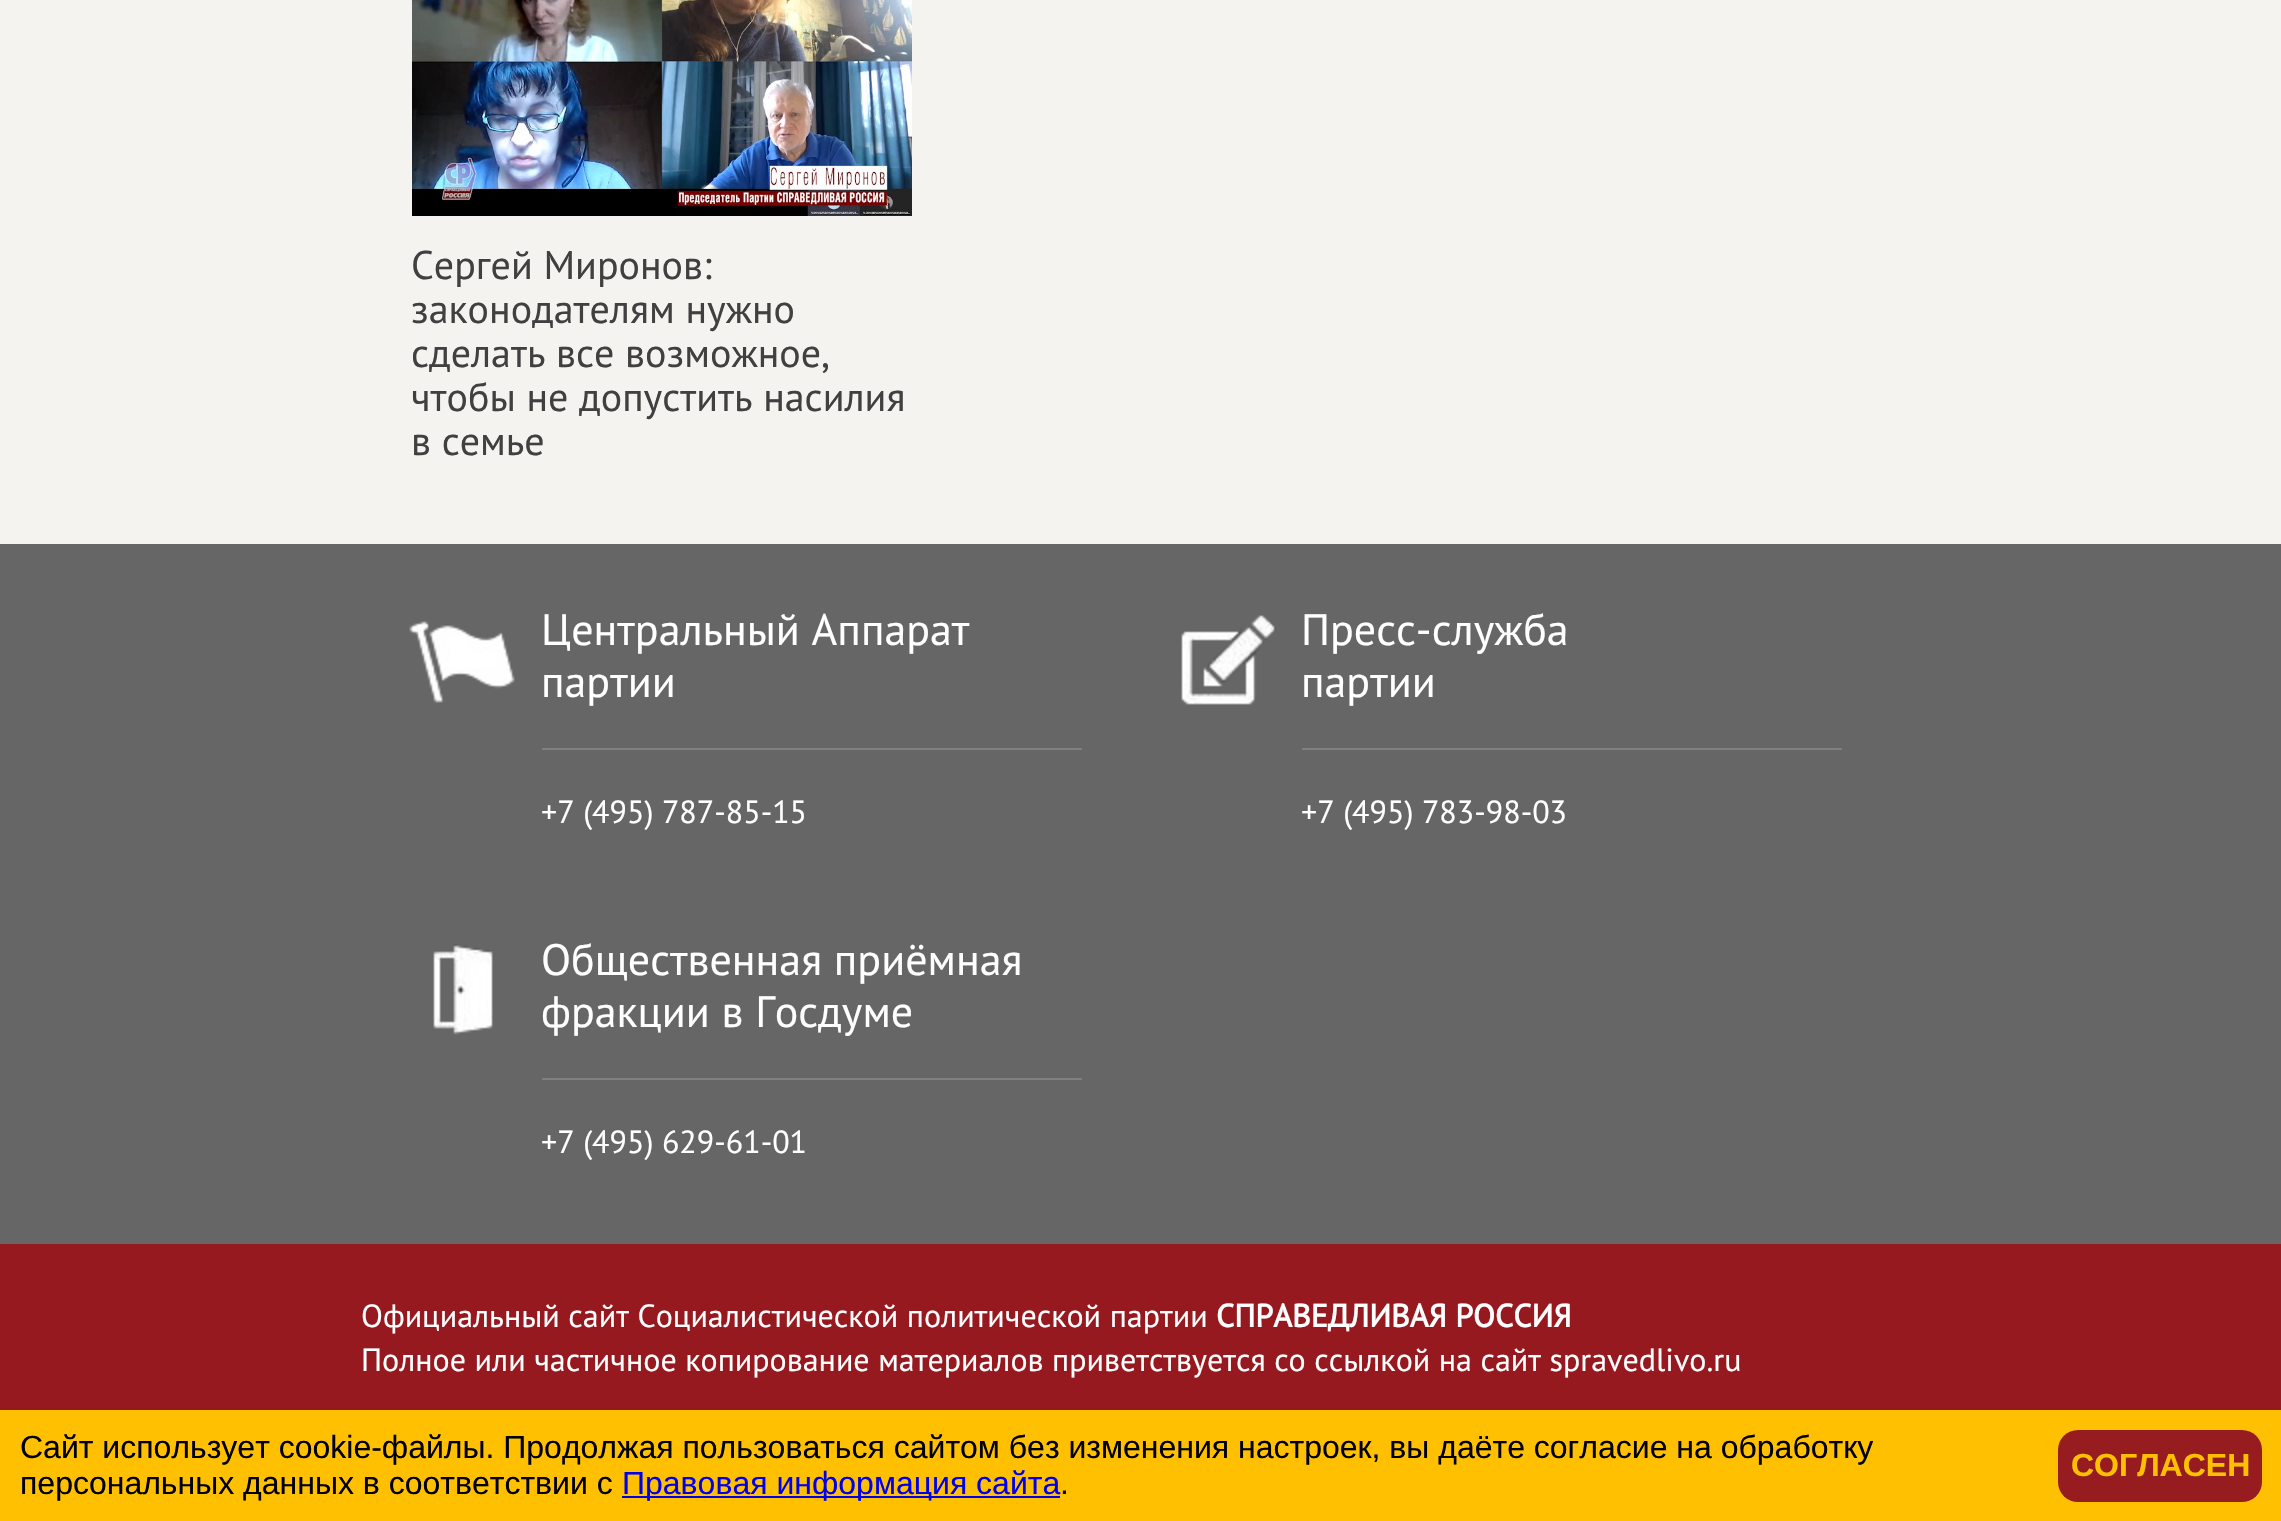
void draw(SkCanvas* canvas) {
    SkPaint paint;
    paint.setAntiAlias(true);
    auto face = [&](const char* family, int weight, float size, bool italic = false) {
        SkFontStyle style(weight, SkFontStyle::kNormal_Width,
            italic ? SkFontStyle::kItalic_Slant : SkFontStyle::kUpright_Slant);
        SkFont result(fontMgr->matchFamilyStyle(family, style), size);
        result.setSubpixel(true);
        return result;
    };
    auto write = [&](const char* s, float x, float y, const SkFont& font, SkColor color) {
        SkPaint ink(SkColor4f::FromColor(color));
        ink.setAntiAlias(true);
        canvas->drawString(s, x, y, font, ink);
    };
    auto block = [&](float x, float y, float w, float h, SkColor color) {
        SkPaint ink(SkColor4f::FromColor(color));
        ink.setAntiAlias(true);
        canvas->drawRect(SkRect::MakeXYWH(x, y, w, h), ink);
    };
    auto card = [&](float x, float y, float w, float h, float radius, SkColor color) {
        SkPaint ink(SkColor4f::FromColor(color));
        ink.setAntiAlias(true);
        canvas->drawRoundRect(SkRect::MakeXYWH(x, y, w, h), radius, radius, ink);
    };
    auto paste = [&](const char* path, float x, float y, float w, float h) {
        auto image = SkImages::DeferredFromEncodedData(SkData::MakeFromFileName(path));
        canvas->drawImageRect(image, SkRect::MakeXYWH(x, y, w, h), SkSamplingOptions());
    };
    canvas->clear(SkColorSetRGB(244, 243, 239));
    paste("pic1.png", 412, 0, 500, 216);
    auto kFont1 = face("PT Sans", 400, 40);
    write("Сергей Миронов:", 411, 279, kFont1, SkColorSetRGB(64, 64, 64));
    write("законодателям нужно", 411, 323, kFont1, SkColorSetRGB(64, 64, 64));
    write("сделать все возможное,", 411, 367, kFont1, SkColorSetRGB(64, 64, 64));
    write("чтобы не допустить насилия", 411, 411, kFont1, SkColorSetRGB(64, 64, 64));
    write("в семье", 411, 455, kFont1, SkColorSetRGB(64, 64, 64));
    block(0, 544, 2281, 700, SkColorSetRGB(102, 102, 102));
    paste("pic2.png", 409, 621, 106, 82);
    block(542, 748, 540, 2, SkColorSetRGB(128, 128, 128));
    auto kFont2 = face("PT Sans", 400, 44);
    write("Центральный Аппарат", 541, 645, kFont2, SK_ColorWHITE);
    write("партии", 541, 697, kFont2, SK_ColorWHITE);
    auto kFont3 = face("PT Sans", 400, 32);
    write("+7 (495) 787-85-15", 541, 823, kFont3, SK_ColorWHITE);
    paste("pic3.png", 1181, 615, 95, 90);
    block(1302, 748, 540, 2, SkColorSetRGB(128, 128, 128));
    write("Пресс-служба", 1301, 645, kFont2, SK_ColorWHITE);
    write("партии", 1301, 697, kFont2, SK_ColorWHITE);
    write("+7 (495) 783-98-03", 1301, 823, kFont3, SK_ColorWHITE);
    paste("pic4.png", 433, 944, 60, 91);
    block(542, 1078, 540, 2, SkColorSetRGB(128, 128, 128));
    write("Общественная приёмная", 541, 975, kFont2, SK_ColorWHITE);
    write("фракции в Госдуме", 541, 1027, kFont2, SK_ColorWHITE);
    write("+7 (495) 629-61-01", 541, 1153, kFont3, SK_ColorWHITE);
    block(0, 1244, 2281, 166, SkColorSetRGB(150, 25, 31));
    write("Официальный сайт Социалистической политической партии", 361, 1327, kFont3, SK_ColorWHITE);
    auto kFont4 = face("PT Sans", 700, 32);
    write("СПРАВЕДЛИВАЯ РОССИЯ", 1216, 1327, kFont4, SK_ColorWHITE);
    write("Полное или частичное копирование материалов приветствуется со ссылкой на сайт spravedlivo.ru", 361, 1371, kFont3, SK_ColorWHITE);
    block(0, 1410, 2281, 111, SkColorSetRGB(255, 192, 2));
    auto kFont5 = face("Liberation Sans", 400, 32);
    write("Сайт использует cookie-файлы. Продолжая пользоваться сайтом без изменения настроек, вы даёте согласие на обработку", 20, 1458, kFont5, SK_ColorBLACK);
    write("персональных данных в соответствии с", 20, 1494, kFont5, SK_ColorBLACK);
    block(622, 1496, 438, 2, SkColorSetRGB(0, 0, 238));
    write("Правовая информация сайта", 622, 1494, kFont5, SkColorSetRGB(0, 0, 238));
    write(".", 1060, 1494, kFont5, SK_ColorBLACK);
    card(2058, 1430, 204, 72, 20, SkColorSetRGB(150, 28, 32));
    auto kFont6 = face("Liberation Sans", 700, 32);
    write("СОГЛАСЕН", 2071, 1476, kFont6, SkColorSetRGB(255, 192, 2));
}
